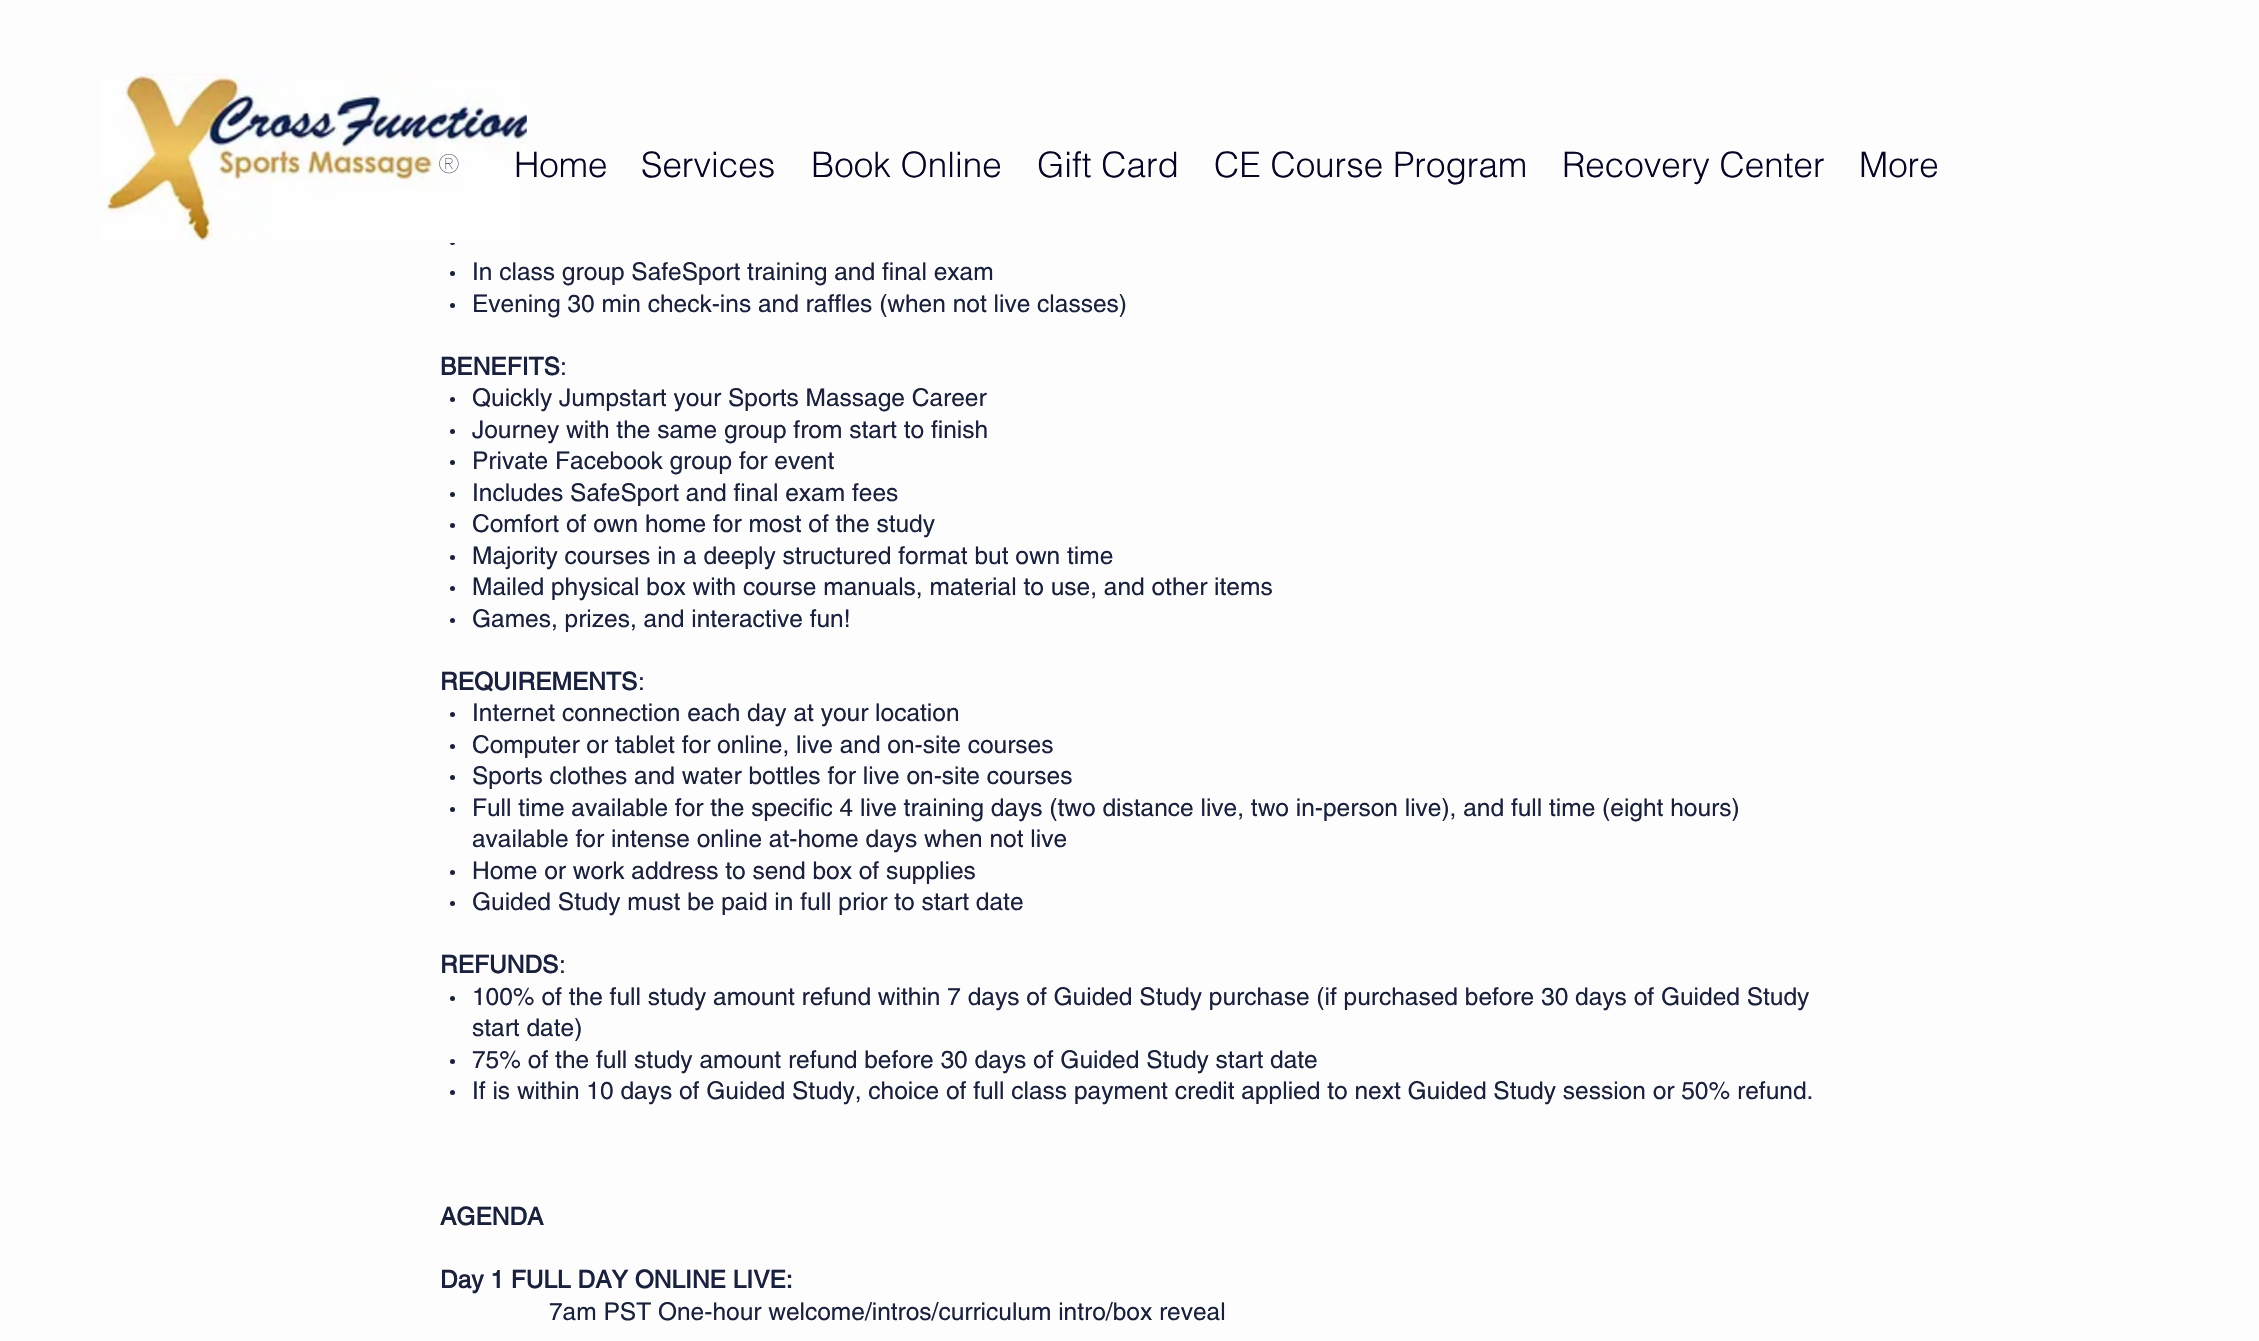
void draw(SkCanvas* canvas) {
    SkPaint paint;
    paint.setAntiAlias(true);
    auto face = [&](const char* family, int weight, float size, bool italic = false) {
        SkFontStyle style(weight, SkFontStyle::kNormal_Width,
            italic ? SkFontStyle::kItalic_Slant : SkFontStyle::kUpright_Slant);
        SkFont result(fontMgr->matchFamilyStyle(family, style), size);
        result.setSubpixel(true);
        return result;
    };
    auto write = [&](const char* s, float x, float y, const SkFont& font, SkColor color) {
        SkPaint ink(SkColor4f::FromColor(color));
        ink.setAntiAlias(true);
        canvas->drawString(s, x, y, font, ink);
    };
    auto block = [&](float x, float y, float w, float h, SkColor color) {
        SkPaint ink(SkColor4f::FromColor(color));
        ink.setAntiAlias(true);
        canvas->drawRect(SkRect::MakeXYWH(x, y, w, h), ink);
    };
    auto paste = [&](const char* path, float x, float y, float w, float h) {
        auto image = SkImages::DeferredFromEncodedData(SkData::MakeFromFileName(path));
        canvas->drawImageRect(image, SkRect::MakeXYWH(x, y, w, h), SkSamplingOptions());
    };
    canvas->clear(SkColorSetRGB(254, 253, 254));
    paint.setColor(SkColorSetRGB(26, 33, 60));
    canvas->drawCircle(452.5f, 242.5f, 2.5f, paint);
    block(450, 240, 5, 3, SkColorSetRGB(254, 253, 254));
    paste("pic1.png", 100, 73, 427, 169);
    auto kFont1 = face("helvetica", 300, 35);
    write("Home", 514, 177, kFont1, SkColorSetRGB(5, 5, 36));
    write("Services", 641, 177, kFont1, SkColorSetRGB(5, 5, 36));
    write("Book Online", 811, 177, kFont1, SkColorSetRGB(5, 5, 36));
    write("Gift Card", 1037, 177, kFont1, SkColorSetRGB(5, 5, 36));
    write("CE Course Program", 1214, 177, kFont1, SkColorSetRGB(5, 5, 36));
    write("Recovery Center", 1562, 177, kFont1, SkColorSetRGB(5, 5, 36));
    write("More", 1859, 177, kFont1, SkColorSetRGB(5, 5, 36));
    paste("pic2.png", 439, 154, 20, 20);
    canvas->drawCircle(452.5f, 273.5f, 2.5f, paint);
    auto kFont2 = face("helvetica", 400, 24.5f);
    write("In class group SafeSport training and final exam", 472, 280, kFont2, SkColorSetRGB(26, 33, 60));
    canvas->drawCircle(452.5f, 305.5f, 2.5f, paint);
    write("Evening 30 min check-ins and raffles (when not live classes)", 472, 312, kFont2, SkColorSetRGB(26, 33, 60));
    auto kFont3 = face("helvetica", 700, 24.5f);
    write("BENEFITS", 440, 375, kFont3, SkColorSetRGB(26, 33, 60));
    write(":", 560, 375, kFont2, SkColorSetRGB(26, 33, 60));
    canvas->drawCircle(452.5f, 399.5f, 2.5f, paint);
    write("Quickly Jumpstart your Sports Massage Career", 472, 406, kFont2, SkColorSetRGB(26, 33, 60));
    canvas->drawCircle(452.5f, 431.5f, 2.5f, paint);
    write("Journey with the same group from start to finish", 472, 438, kFont2, SkColorSetRGB(26, 33, 60));
    canvas->drawCircle(452.5f, 462.5f, 2.5f, paint);
    write("Private Facebook group for event", 472, 469, kFont2, SkColorSetRGB(26, 33, 60));
    canvas->drawCircle(452.5f, 494.5f, 2.5f, paint);
    write("Includes SafeSport and final exam fees", 472, 501, kFont2, SkColorSetRGB(26, 33, 60));
    canvas->drawCircle(452.5f, 525.5f, 2.5f, paint);
    write("Comfort of own home for most of the study", 472, 532, kFont2, SkColorSetRGB(26, 33, 60));
    canvas->drawCircle(452.5f, 557.5f, 2.5f, paint);
    write("Majority courses in a deeply structured format but own time", 472, 564, kFont2, SkColorSetRGB(26, 33, 60));
    canvas->drawCircle(452.5f, 588.5f, 2.5f, paint);
    write("Mailed physical box with course manuals, material to use, and other items", 472, 595, kFont2, SkColorSetRGB(26, 33, 60));
    canvas->drawCircle(452.5f, 620.5f, 2.5f, paint);
    write("Games, prizes, and interactive fun!", 472, 627, kFont2, SkColorSetRGB(26, 33, 60));
    write("REQUIREMENTS", 440, 690, kFont3, SkColorSetRGB(26, 33, 60));
    write(":", 638, 690, kFont2, SkColorSetRGB(26, 33, 60));
    canvas->drawCircle(452.5f, 714.5f, 2.5f, paint);
    write("Internet connection each day at your location", 472, 721, kFont2, SkColorSetRGB(26, 33, 60));
    canvas->drawCircle(452.5f, 746.5f, 2.5f, paint);
    write("Computer or tablet for online, live and on-site courses", 472, 753, kFont2, SkColorSetRGB(26, 33, 60));
    canvas->drawCircle(452.5f, 777.5f, 2.5f, paint);
    write("Sports clothes and water bottles for live on-site courses", 472, 784, kFont2, SkColorSetRGB(26, 33, 60));
    canvas->drawCircle(452.5f, 809.5f, 2.5f, paint);
    write("Full time available for the specific 4 live training days (two distance live, two in-person live), and full time (eight hours)", 472, 816, kFont2, SkColorSetRGB(26, 33, 60));
    write("available for intense online at-home days when not live", 472, 847, kFont2, SkColorSetRGB(26, 33, 60));
    canvas->drawCircle(452.5f, 872.5f, 2.5f, paint);
    write("Home or work address to send box of supplies", 472, 879, kFont2, SkColorSetRGB(26, 33, 60));
    canvas->drawCircle(452.5f, 903.5f, 2.5f, paint);
    write("Guided Study must be paid in full prior to start date", 472, 910, kFont2, SkColorSetRGB(26, 33, 60));
    write("REFUNDS", 440, 973, kFont3, SkColorSetRGB(26, 33, 60));
    write(":", 559, 973, kFont2, SkColorSetRGB(26, 33, 60));
    canvas->drawCircle(452.5f, 998.5f, 2.5f, paint);
    write("100% of the full study amount refund within 7 days of Guided Study purchase (if purchased before 30 days of Guided Study", 472, 1005, kFont2, SkColorSetRGB(26, 33, 60));
    write("start date)", 472, 1036, kFont2, SkColorSetRGB(26, 33, 60));
    canvas->drawCircle(452.5f, 1061.5f, 2.5f, paint);
    write("75% of the full study amount refund before 30 days of Guided Study start date", 472, 1068, kFont2, SkColorSetRGB(26, 33, 60));
    canvas->drawCircle(452.5f, 1092.5f, 2.5f, paint);
    write("If is within 10 days of Guided Study, choice of full class payment credit applied to next Guided Study session or 50% refund.", 472, 1099, kFont2, SkColorSetRGB(26, 33, 60));
    write("AGENDA", 440, 1225, kFont3, SkColorSetRGB(26, 33, 60));
    write("Day 1 FULL DAY ONLINE LIVE:", 440, 1288, kFont3, SkColorSetRGB(26, 33, 60));
    write("7am PST One-hour welcome/intros/curriculum intro/box reveal", 549, 1320, kFont2, SkColorSetRGB(26, 33, 60));
}
